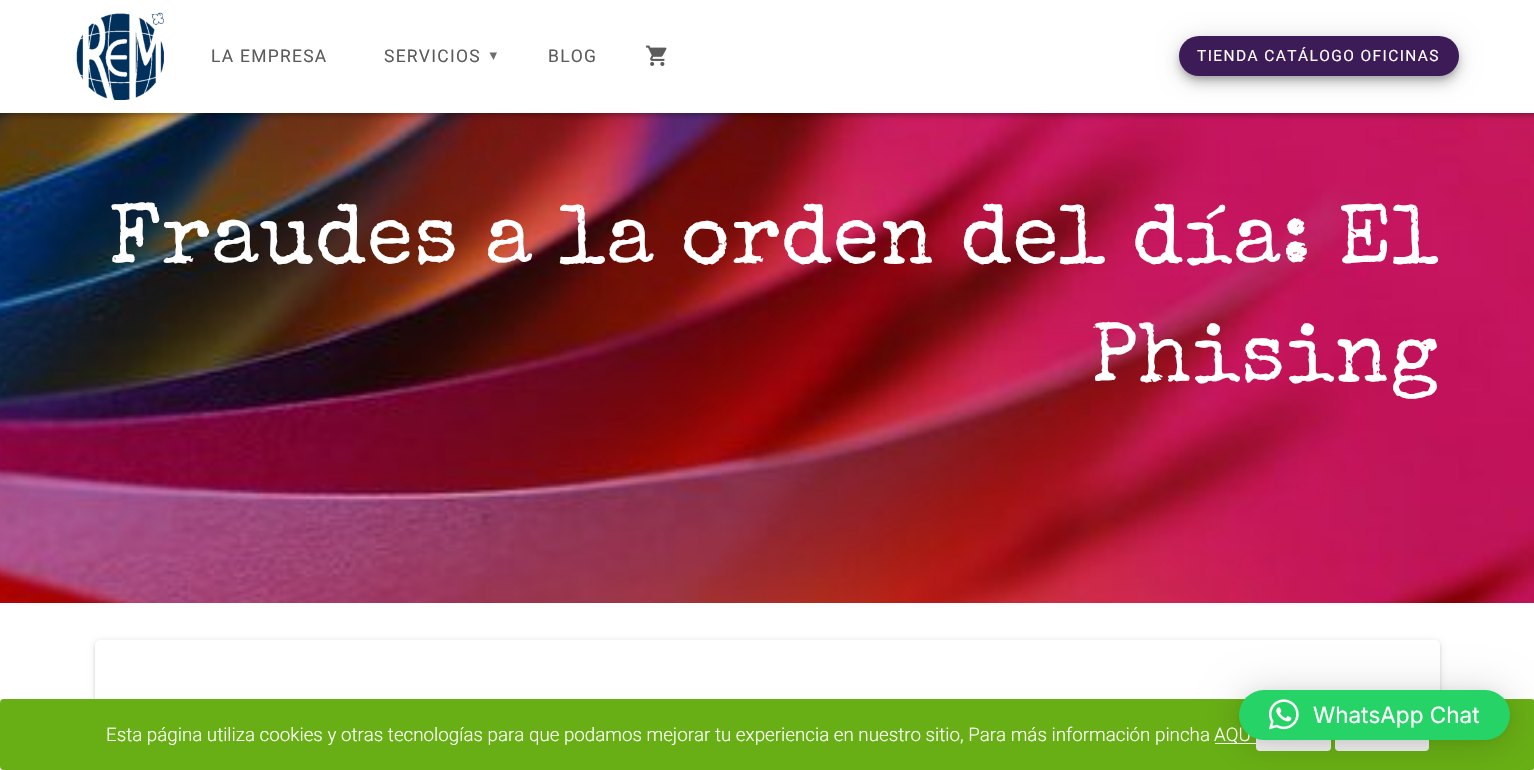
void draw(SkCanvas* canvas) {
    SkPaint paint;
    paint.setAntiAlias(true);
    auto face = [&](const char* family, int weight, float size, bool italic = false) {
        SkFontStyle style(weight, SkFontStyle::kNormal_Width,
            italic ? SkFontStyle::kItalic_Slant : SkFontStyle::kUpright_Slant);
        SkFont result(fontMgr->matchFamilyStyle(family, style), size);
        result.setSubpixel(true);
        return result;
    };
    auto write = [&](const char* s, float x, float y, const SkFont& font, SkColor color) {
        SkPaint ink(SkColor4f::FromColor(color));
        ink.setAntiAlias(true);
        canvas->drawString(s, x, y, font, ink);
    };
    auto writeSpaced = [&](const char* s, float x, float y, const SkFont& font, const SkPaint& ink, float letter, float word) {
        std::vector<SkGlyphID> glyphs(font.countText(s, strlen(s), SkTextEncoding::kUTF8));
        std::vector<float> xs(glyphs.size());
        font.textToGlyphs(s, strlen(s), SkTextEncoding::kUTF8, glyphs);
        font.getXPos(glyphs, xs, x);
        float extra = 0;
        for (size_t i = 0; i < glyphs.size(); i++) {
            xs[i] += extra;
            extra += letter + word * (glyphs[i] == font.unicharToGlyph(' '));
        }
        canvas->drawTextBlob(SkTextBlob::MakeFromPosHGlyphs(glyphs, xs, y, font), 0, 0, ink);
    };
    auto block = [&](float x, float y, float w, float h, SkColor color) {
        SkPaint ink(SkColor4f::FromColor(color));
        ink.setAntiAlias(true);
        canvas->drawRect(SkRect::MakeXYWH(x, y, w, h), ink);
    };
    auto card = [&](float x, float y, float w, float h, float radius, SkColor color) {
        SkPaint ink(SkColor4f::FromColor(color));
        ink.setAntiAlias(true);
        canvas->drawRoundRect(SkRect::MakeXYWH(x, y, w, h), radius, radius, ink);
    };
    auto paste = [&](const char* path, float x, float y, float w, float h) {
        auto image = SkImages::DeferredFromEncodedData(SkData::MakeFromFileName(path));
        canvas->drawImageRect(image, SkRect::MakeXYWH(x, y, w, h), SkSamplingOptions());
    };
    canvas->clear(SK_ColorWHITE);
    paste("pic3.png", 0, 113, 1534, 490);
    paint.setColor(SkColorSetARGB(84, 0, 0, 0));
    paint.setMaskFilter(SkMaskFilter::MakeBlur(kNormal_SkBlurStyle, 3));
    canvas->drawRect(SkRect::MakeXYWH(-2, -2, 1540, 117), paint);
    paint.setMaskFilter(nullptr);
    block(0, 0, 1534, 113, SK_ColorWHITE);
    paste("pic1.png", 76, 12, 88, 88);
    auto kFont1 = face("Roboto", 400, 17.5f);
    paint.setColor(SkColorSetRGB(92, 92, 92));
    writeSpaced("LA EMPRESA", 211, 62, kFont1, paint, 1.25f, 0);
    writeSpaced("SERVICIOS", 384, 62, kFont1, paint, 1.25f, 0);
    paint.setColor(SkColorSetRGB(108, 108, 108));
    canvas->drawPath(SkPathBuilder().moveTo(489.5f, 52.5f).lineTo(493.5f, 60).lineTo(497, 52.5f).close().detach(), paint);
    paint.setColor(SkColorSetRGB(92, 92, 92));
    writeSpaced("BLOG", 548, 62, kFont1, paint, 1.25f, 0);
    paste("pic2.png", 646, 45, 21, 21);
    paint.setColor(SkColorSetARGB(31, 0, 0, 0));
    paint.setMaskFilter(SkMaskFilter::MakeBlur(kNormal_SkBlurStyle, 11));
    canvas->drawRoundRect(SkRect::MakeXYWH(1179, 38, 280, 40), 20, 20, paint);
    paint.setMaskFilter(nullptr);
    paint.setColor(SkColorSetARGB(36, 0, 0, 0));
    paint.setMaskFilter(SkMaskFilter::MakeBlur(kNormal_SkBlurStyle, 6));
    canvas->drawRoundRect(SkRect::MakeXYWH(1179, 44, 280, 40), 20, 20, paint);
    paint.setMaskFilter(nullptr);
    paint.setColor(SkColorSetARGB(51, 0, 0, 0));
    paint.setMaskFilter(SkMaskFilter::MakeBlur(kNormal_SkBlurStyle, 3));
    canvas->drawRoundRect(SkRect::MakeXYWH(1180, 41, 278, 38), 19, 19, paint);
    paint.setMaskFilter(nullptr);
    card(1179, 36, 280, 40, 20, SkColorSetRGB(60, 27, 86));
    auto kFont2 = face("Roboto", 400, 15.5f);
    paint.setColor(SK_ColorWHITE);
    writeSpaced("TIENDA CATÁLOGO OFICINAS", 1197, 61, kFont2, paint, 1.4f, 0);
    auto kFont3 = face("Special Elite", 400, 84.4f);
    writeSpaced("Fraudes a la orden del día: El", 109, 262, kFont3, paint, 1.1f, 0);
    writeSpaced("Phising", 1091, 380, kFont3, paint, 1.1f, 0);
    paint.setColor(SkColorSetARGB(31, 0, 0, 0));
    paint.setMaskFilter(SkMaskFilter::MakeBlur(kNormal_SkBlurStyle, 3));
    canvas->drawRoundRect(SkRect::MakeXYWH(95, 641, 1345, 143), 5, 5, paint);
    paint.setMaskFilter(nullptr);
    paint.setColor(SkColorSetARGB(36, 0, 0, 0));
    paint.setMaskFilter(SkMaskFilter::MakeBlur(kNormal_SkBlurStyle, 1));
    canvas->drawRoundRect(SkRect::MakeXYWH(95, 643, 1345, 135), 5, 5, paint);
    paint.setMaskFilter(nullptr);
    card(95, 640, 1345, 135, 5, SK_ColorWHITE);
    card(0, 699, 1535, 71, 4, SkColorSetRGB(104, 175, 21));
    block(1215, 743, 41, 1, SK_ColorWHITE);
    card(1256, 718, 75, 33, 4, SkColorSetRGB(239, 239, 239));
    card(1335, 718, 94, 33, 4, SkColorSetRGB(239, 239, 239));
    paint.setColor(SkColorSetARGB(41, 0, 0, 0));
    paint.setMaskFilter(SkMaskFilter::MakeBlur(kNormal_SkBlurStyle, 20));
    canvas->drawRoundRect(SkRect::MakeXYWH(1239, 693, 271, 50), 25, 25, paint);
    paint.setMaskFilter(nullptr);
    paint.setColor(SkColorSetARGB(15, 0, 0, 0));
    paint.setMaskFilter(SkMaskFilter::MakeBlur(kNormal_SkBlurStyle, 4));
    canvas->drawRoundRect(SkRect::MakeXYWH(1239, 691, 271, 50), 25, 25, paint);
    paint.setMaskFilter(nullptr);
    auto kFont4 = face("Roboto", 300, 18.75f);
    write("AQU", 1214, 741, kFont4, SK_ColorWHITE);
    card(1239, 690, 271, 50, 25, SkColorSetRGB(37, 211, 102));
    paste("pic4.png", 1268, 699, 31, 31);
    auto kFont5 = face("Inter", 400, 22.5f);
    write("WhatsApp Chat", 1313, 723, kFont5, SK_ColorWHITE);
    write("Esta página utiliza cookies y otras tecnologías para que podamos mejorar tu experiencia en nuestro sitio, Para más información pincha", 106, 741, kFont4, SK_ColorWHITE);
}
